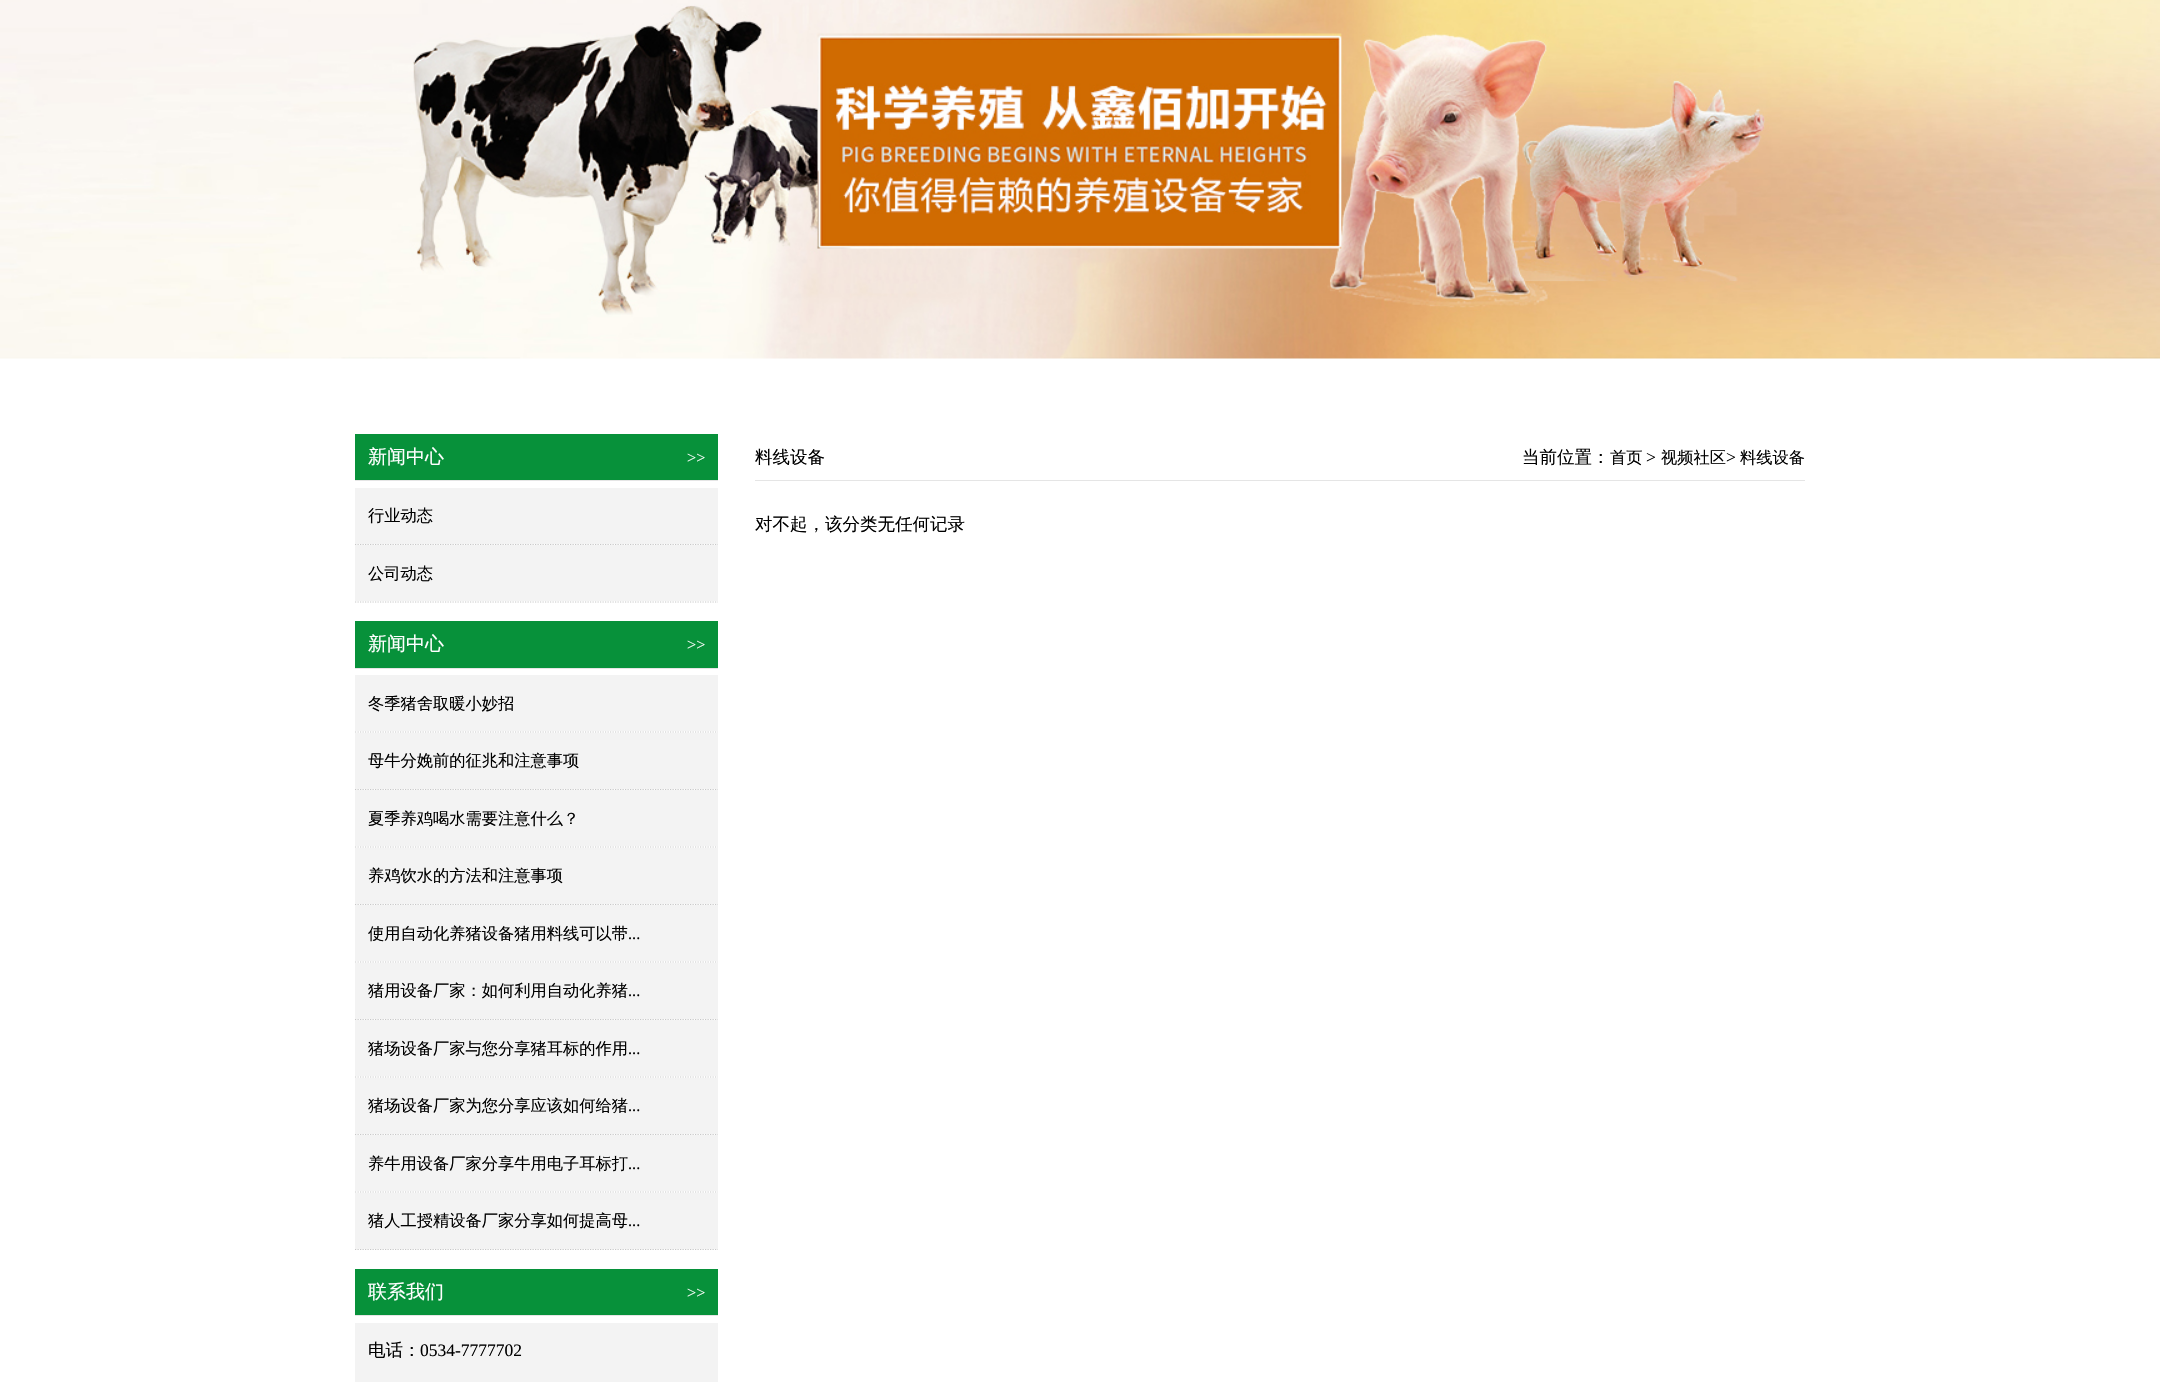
void draw(SkCanvas* canvas) {
    SkPaint paint;
    paint.setAntiAlias(true);
    auto face = [&](const char* family, int weight, float size, bool italic = false) {
        SkFontStyle style(weight, SkFontStyle::kNormal_Width,
            italic ? SkFontStyle::kItalic_Slant : SkFontStyle::kUpright_Slant);
        SkFont result(fontMgr->matchFamilyStyle(family, style), size);
        result.setSubpixel(true);
        return result;
    };
    auto write = [&](const char* s, float x, float y, const SkFont& font, SkColor color) {
        SkPaint ink(SkColor4f::FromColor(color));
        ink.setAntiAlias(true);
        canvas->drawString(s, x, y, font, ink);
    };
    auto block = [&](float x, float y, float w, float h, SkColor color) {
        SkPaint ink(SkColor4f::FromColor(color));
        ink.setAntiAlias(true);
        canvas->drawRect(SkRect::MakeXYWH(x, y, w, h), ink);
    };
    auto paste = [&](const char* path, float x, float y, float w, float h) {
        auto image = SkImages::DeferredFromEncodedData(SkData::MakeFromFileName(path));
        canvas->drawImageRect(image, SkRect::MakeXYWH(x, y, w, h), SkSamplingOptions());
    };
    canvas->clear(SK_ColorWHITE);
    paste("pic1.png", 0, 0, 2160, 359);
    block(355, 434, 363, 46, SkColorSetRGB(7, 145, 58));
    block(355, 480, 363, 1, SkColorSetRGB(229, 229, 229));
    auto kFont1 = face("WenQuanYi Zen Hei", 500, 19);
    write("新闻中心", 368, 463, kFont1, SK_ColorWHITE);
    auto kFont2 = face("Liberation Serif", 400, 16.25f);
    write(">>", 687, 463, kFont2, SK_ColorWHITE);
    canvas->save();
    canvas->clipRect(SkRect::MakeXYWH(355, 434, 363, 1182));
    paint.setStyle(SkPaint::kStroke_Style);
    paint.setStrokeWidth(1.2f);
    paint.setColor(SkColorSetRGB(199, 199, 199));
    paint.setPathEffect(SkDashPathEffect::Make({{1.25f, 1.25f}}, 0));
    canvas->drawPath(SkPathBuilder().moveTo(355, 544.5f).lineTo(730, 544.5f).detach(), paint);
    paint.setPathEffect(nullptr);
    canvas->restore();
    block(355, 488, 363, 56, SkColorSetRGB(243, 243, 243));
    auto kFont3 = face("WenQuanYi Zen Hei", 500, 16.25f);
    write("行业动态", 368, 521, kFont3, SK_ColorBLACK);
    canvas->save();
    canvas->clipRect(SkRect::MakeXYWH(355, 434, 363, 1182));
    paint.setPathEffect(SkDashPathEffect::Make({{1.25f, 1.25f}}, 0));
    canvas->drawPath(SkPathBuilder().moveTo(355, 602).lineTo(730, 602).detach(), paint);
    paint.setPathEffect(nullptr);
    canvas->restore();
    block(355, 545, 363, 56, SkColorSetRGB(243, 243, 243));
    write("公司动态", 368, 579, kFont3, SK_ColorBLACK);
    block(355, 621, 363, 47, SkColorSetRGB(7, 145, 58));
    block(355, 668, 363, 1, SkColorSetRGB(229, 229, 229));
    write("新闻中心", 368, 650, kFont1, SK_ColorWHITE);
    write(">>", 687, 650, kFont2, SK_ColorWHITE);
    canvas->save();
    canvas->clipRect(SkRect::MakeXYWH(355, 434, 363, 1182));
    paint.setPathEffect(SkDashPathEffect::Make({{1.25f, 1.25f}}, 0));
    canvas->drawPath(SkPathBuilder().moveTo(355, 732).lineTo(730, 732).detach(), paint);
    paint.setPathEffect(nullptr);
    canvas->restore();
    block(355, 675, 363, 56, SkColorSetRGB(243, 243, 243));
    write("冬季猪舍取暖小妙招", 368, 709, kFont3, SK_ColorBLACK);
    canvas->save();
    canvas->clipRect(SkRect::MakeXYWH(355, 434, 363, 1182));
    paint.setPathEffect(SkDashPathEffect::Make({{1.25f, 1.25f}}, 0));
    canvas->drawPath(SkPathBuilder().moveTo(355, 789.5f).lineTo(730, 789.5f).detach(), paint);
    paint.setPathEffect(nullptr);
    canvas->restore();
    block(355, 733, 363, 56, SkColorSetRGB(243, 243, 243));
    write("母牛分娩前的征兆和注意事项", 368, 766, kFont3, SK_ColorBLACK);
    canvas->save();
    canvas->clipRect(SkRect::MakeXYWH(355, 434, 363, 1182));
    paint.setPathEffect(SkDashPathEffect::Make({{1.25f, 1.25f}}, 0));
    canvas->drawPath(SkPathBuilder().moveTo(355, 847).lineTo(730, 847).detach(), paint);
    paint.setPathEffect(nullptr);
    canvas->restore();
    block(355, 790, 363, 56, SkColorSetRGB(243, 243, 243));
    write("夏季养鸡喝水需要注意什么？", 368, 824, kFont3, SK_ColorBLACK);
    canvas->save();
    canvas->clipRect(SkRect::MakeXYWH(355, 434, 363, 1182));
    paint.setPathEffect(SkDashPathEffect::Make({{1.25f, 1.25f}}, 0));
    canvas->drawPath(SkPathBuilder().moveTo(355, 904.5f).lineTo(730, 904.5f).detach(), paint);
    paint.setPathEffect(nullptr);
    canvas->restore();
    block(355, 848, 363, 56, SkColorSetRGB(243, 243, 243));
    write("养鸡饮水的方法和注意事项", 368, 881, kFont3, SK_ColorBLACK);
    canvas->save();
    canvas->clipRect(SkRect::MakeXYWH(355, 434, 363, 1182));
    paint.setPathEffect(SkDashPathEffect::Make({{1.25f, 1.25f}}, 0));
    canvas->drawPath(SkPathBuilder().moveTo(355, 962).lineTo(730, 962).detach(), paint);
    paint.setPathEffect(nullptr);
    canvas->restore();
    block(355, 905, 363, 56, SkColorSetRGB(243, 243, 243));
    write("使用自动化养猪设备猪用料线可以带", 368, 939, kFont3, SK_ColorBLACK);
    write("...", 628, 939, kFont2, SK_ColorBLACK);
    canvas->save();
    canvas->clipRect(SkRect::MakeXYWH(355, 434, 363, 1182));
    paint.setPathEffect(SkDashPathEffect::Make({{1.25f, 1.25f}}, 0));
    canvas->drawPath(SkPathBuilder().moveTo(355, 1019.5f).lineTo(730, 1019.5f).detach(), paint);
    paint.setPathEffect(nullptr);
    canvas->restore();
    block(355, 963, 363, 56, SkColorSetRGB(243, 243, 243));
    write("猪用设备厂家：如何利用自动化养猪", 368, 996, kFont3, SK_ColorBLACK);
    write("...", 628, 996, kFont2, SK_ColorBLACK);
    canvas->save();
    canvas->clipRect(SkRect::MakeXYWH(355, 434, 363, 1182));
    paint.setPathEffect(SkDashPathEffect::Make({{1.25f, 1.25f}}, 0));
    canvas->drawPath(SkPathBuilder().moveTo(355, 1077).lineTo(730, 1077).detach(), paint);
    paint.setPathEffect(nullptr);
    canvas->restore();
    block(355, 1020, 363, 56, SkColorSetRGB(243, 243, 243));
    write("猪场设备厂家与您分享猪耳标的作用", 368, 1054, kFont3, SK_ColorBLACK);
    write("...", 628, 1054, kFont2, SK_ColorBLACK);
    canvas->save();
    canvas->clipRect(SkRect::MakeXYWH(355, 434, 363, 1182));
    paint.setPathEffect(SkDashPathEffect::Make({{1.25f, 1.25f}}, 0));
    canvas->drawPath(SkPathBuilder().moveTo(355, 1134.5f).lineTo(730, 1134.5f).detach(), paint);
    paint.setPathEffect(nullptr);
    canvas->restore();
    block(355, 1078, 363, 56, SkColorSetRGB(243, 243, 243));
    write("猪场设备厂家为您分享应该如何给猪", 368, 1111, kFont3, SK_ColorBLACK);
    write("...", 628, 1111, kFont2, SK_ColorBLACK);
    canvas->save();
    canvas->clipRect(SkRect::MakeXYWH(355, 434, 363, 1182));
    paint.setPathEffect(SkDashPathEffect::Make({{1.25f, 1.25f}}, 0));
    canvas->drawPath(SkPathBuilder().moveTo(355, 1192).lineTo(730, 1192).detach(), paint);
    paint.setPathEffect(nullptr);
    canvas->restore();
    block(355, 1135, 363, 56, SkColorSetRGB(243, 243, 243));
    write("养牛用设备厂家分享牛用电子耳标打", 368, 1169, kFont3, SK_ColorBLACK);
    write("...", 628, 1169, kFont2, SK_ColorBLACK);
    canvas->save();
    canvas->clipRect(SkRect::MakeXYWH(355, 434, 363, 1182));
    paint.setPathEffect(SkDashPathEffect::Make({{1.25f, 1.25f}}, 0));
    canvas->drawPath(SkPathBuilder().moveTo(355, 1249.5f).lineTo(730, 1249.5f).detach(), paint);
    paint.setPathEffect(nullptr);
    canvas->restore();
    block(355, 1193, 363, 56, SkColorSetRGB(243, 243, 243));
    write("猪人工授精设备厂家分享如何提高母", 368, 1226, kFont3, SK_ColorBLACK);
    write("...", 628, 1226, kFont2, SK_ColorBLACK);
    block(355, 1269, 363, 46, SkColorSetRGB(7, 145, 58));
    block(355, 1315, 363, 1, SkColorSetRGB(229, 229, 229));
    write("联系我们", 368, 1298, kFont1, SK_ColorWHITE);
    write(">>", 687, 1298, kFont2, SK_ColorWHITE);
    block(355, 1323, 363, 59, SkColorSetRGB(243, 243, 243));
    auto kFont4 = face("WenQuanYi Zen Hei", 500, 17.5f);
    write("电话：", 368, 1356, kFont4, SK_ColorBLACK);
    auto kFont5 = face("Liberation Serif", 400, 17.5f);
    write("0534-7777702", 420, 1356, kFont5, SK_ColorBLACK);
    block(755, 480, 1050, 1, SkColorSetRGB(229, 229, 229));
    write("料线设备", 755, 463, kFont4, SK_ColorBLACK);
    write("当前位置：", 1522, 463, kFont4, SK_ColorBLACK);
    write("首页", 1610, 463, kFont3, SK_ColorBLACK);
    write(">", 1646, 463, kFont5, SK_ColorBLACK);
    write("视频社区", 1661, 463, kFont3, SK_ColorBLACK);
    write(">", 1726, 463, kFont5, SK_ColorBLACK);
    write("料线设备", 1740, 463, kFont3, SK_ColorBLACK);
    write("对不起，该分类无任何记录", 755, 530, kFont4, SK_ColorBLACK);
}
